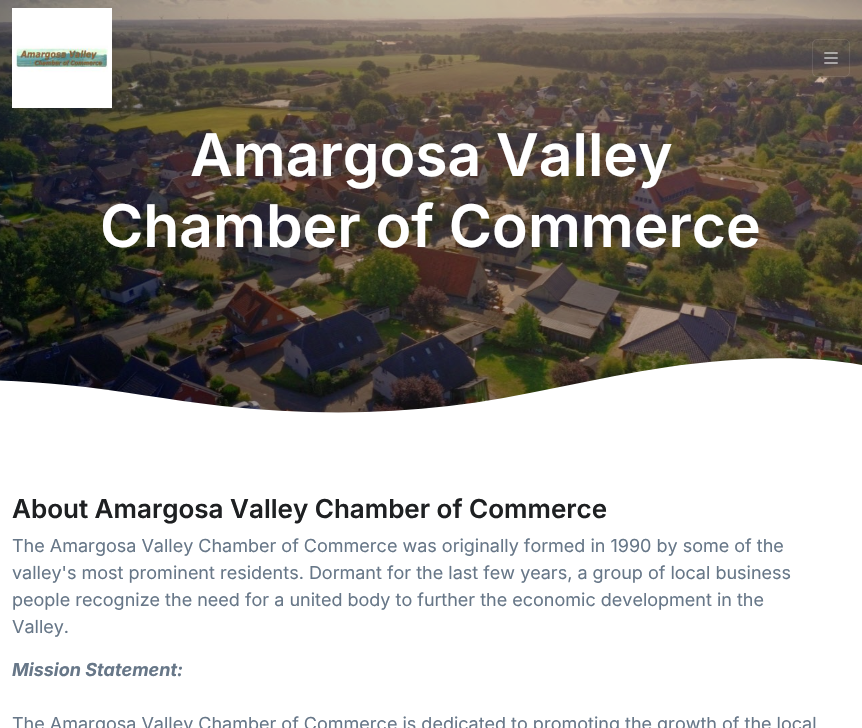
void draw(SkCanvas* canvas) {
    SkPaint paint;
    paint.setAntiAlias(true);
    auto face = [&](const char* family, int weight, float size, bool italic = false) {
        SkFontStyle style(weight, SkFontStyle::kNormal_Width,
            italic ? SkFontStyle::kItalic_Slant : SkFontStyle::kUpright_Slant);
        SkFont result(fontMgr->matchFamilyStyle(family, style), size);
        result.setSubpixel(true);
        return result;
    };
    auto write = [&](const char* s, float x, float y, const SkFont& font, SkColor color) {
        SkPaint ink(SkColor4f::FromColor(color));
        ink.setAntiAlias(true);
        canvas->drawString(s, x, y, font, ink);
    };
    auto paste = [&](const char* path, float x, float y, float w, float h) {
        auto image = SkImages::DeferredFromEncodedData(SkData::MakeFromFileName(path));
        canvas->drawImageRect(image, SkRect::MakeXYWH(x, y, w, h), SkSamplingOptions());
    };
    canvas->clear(SK_ColorWHITE);
    paste("pic3.png", 0, 0, 862, 413);
    paste("pic1.png", 12, 8, 100, 100);
    paint.setStyle(SkPaint::kStroke_Style);
    paint.setStrokeWidth(1);
    paint.setColor(SkColorSetARGB(26, 255, 255, 255));
    canvas->drawRoundRect(SkRect::MakeXYWH(812.5f, 39.5f, 37, 37), 4.5f, 4.5f, paint);
    paste("pic2.png", 824, 52, 14, 12);
    auto kFont1 = face("Inter", 600, 58.75f);
    write("Amargosa Valley", 190, 176, kFont1, SK_ColorWHITE);
    write("Chamber of Commerce", 100, 247, kFont1, SK_ColorWHITE);
    paint.setStyle(SkPaint::kFill_Style);
    paint.setColor(SK_ColorWHITE);
    canvas->drawPath(SkPathBuilder().moveTo(66, 385).cubicTo(118, 390, 169, 400, 222, 406).cubicTo(296, 414, 374, 415, 449, 406).cubicTo(521, 398, 596, 377, 668, 367).cubicTo(731, 358, 801, 354, 862, 365).lineTo(862, 413).lineTo(-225, 413).lineTo(-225, 400).cubicTo(-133, 380, -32, 375, 66, 385).close().detach(), paint);
    auto kFont2 = face("Inter", 600, 26);
    write("About Amargosa Valley Chamber of Commerce", 12, 518, kFont2, SkColorSetRGB(30, 32, 34));
    auto kFont3 = face("Inter", 400, 18);
    write("The Amargosa Valley Chamber of Commerce was originally formed in 1990 by some of the", 12, 552, kFont3, SkColorSetRGB(103, 119, 136));
    write("valley's most prominent residents. Dormant for the last few years, a group of local business", 12, 579, kFont3, SkColorSetRGB(103, 119, 136));
    write("people recognize the need for a united body to further the economic development in the", 12, 606, kFont3, SkColorSetRGB(103, 119, 136));
    write("Valley.", 12, 633, kFont3, SkColorSetRGB(103, 119, 136));
    auto kFont4 = face("Inter", 700, 18, true);
    write("Mission Statement:", 12, 676, kFont4, SkColorSetRGB(103, 119, 136));
    write("The Amargosa Valley Chamber of Commerce is dedicated to promoting the growth of the local", 12, 730, kFont3, SkColorSetRGB(103, 119, 136));
}
